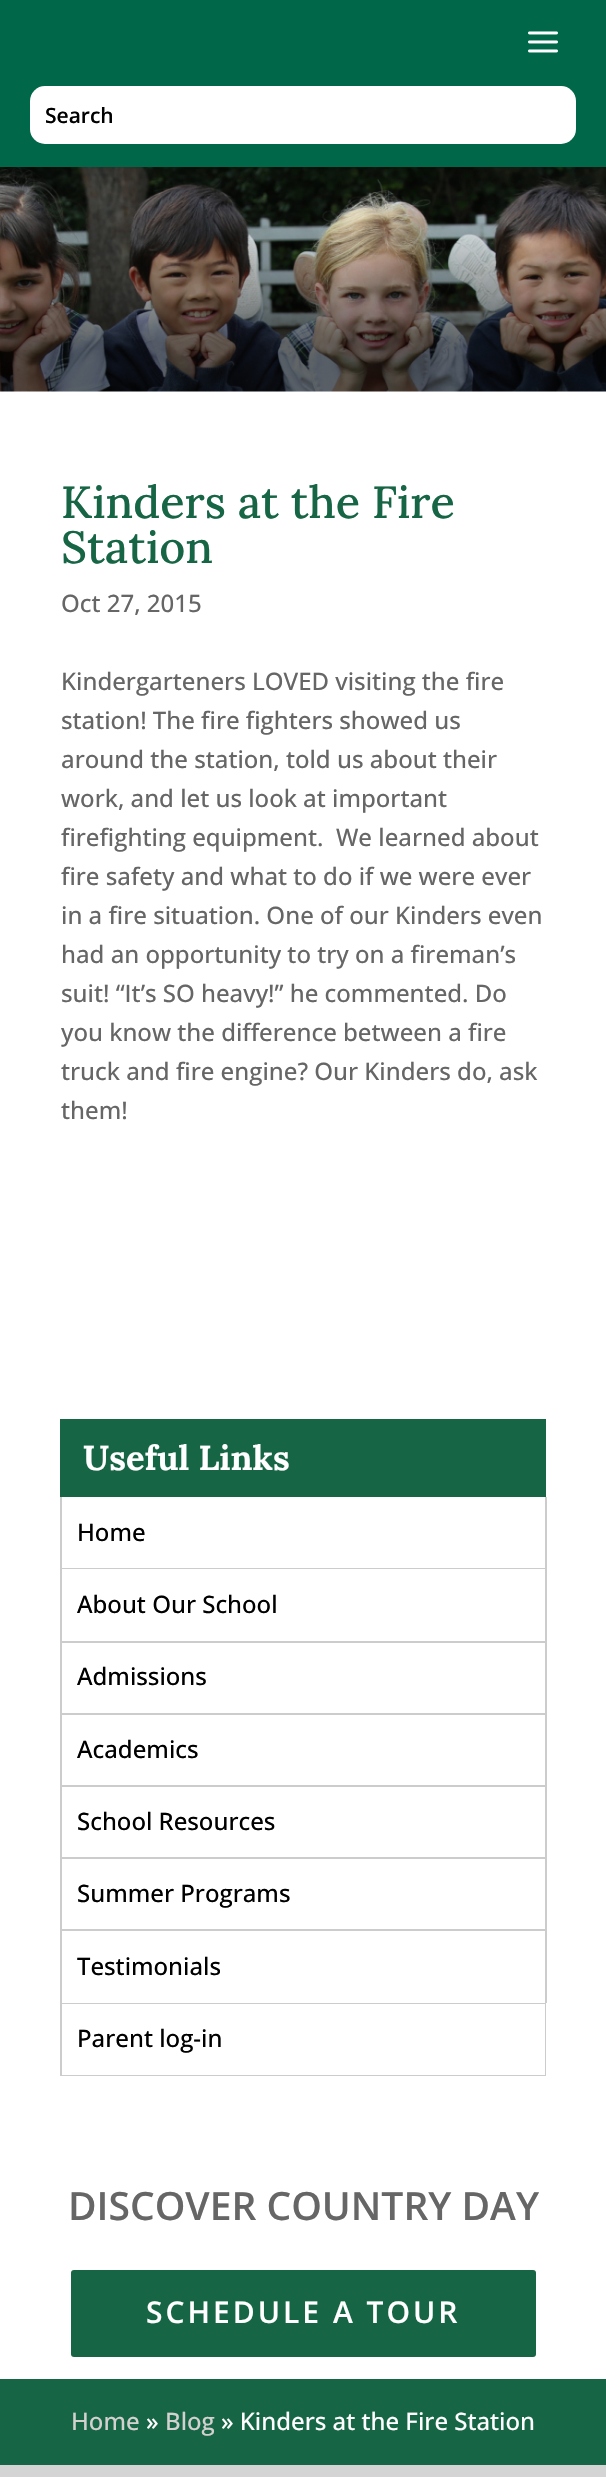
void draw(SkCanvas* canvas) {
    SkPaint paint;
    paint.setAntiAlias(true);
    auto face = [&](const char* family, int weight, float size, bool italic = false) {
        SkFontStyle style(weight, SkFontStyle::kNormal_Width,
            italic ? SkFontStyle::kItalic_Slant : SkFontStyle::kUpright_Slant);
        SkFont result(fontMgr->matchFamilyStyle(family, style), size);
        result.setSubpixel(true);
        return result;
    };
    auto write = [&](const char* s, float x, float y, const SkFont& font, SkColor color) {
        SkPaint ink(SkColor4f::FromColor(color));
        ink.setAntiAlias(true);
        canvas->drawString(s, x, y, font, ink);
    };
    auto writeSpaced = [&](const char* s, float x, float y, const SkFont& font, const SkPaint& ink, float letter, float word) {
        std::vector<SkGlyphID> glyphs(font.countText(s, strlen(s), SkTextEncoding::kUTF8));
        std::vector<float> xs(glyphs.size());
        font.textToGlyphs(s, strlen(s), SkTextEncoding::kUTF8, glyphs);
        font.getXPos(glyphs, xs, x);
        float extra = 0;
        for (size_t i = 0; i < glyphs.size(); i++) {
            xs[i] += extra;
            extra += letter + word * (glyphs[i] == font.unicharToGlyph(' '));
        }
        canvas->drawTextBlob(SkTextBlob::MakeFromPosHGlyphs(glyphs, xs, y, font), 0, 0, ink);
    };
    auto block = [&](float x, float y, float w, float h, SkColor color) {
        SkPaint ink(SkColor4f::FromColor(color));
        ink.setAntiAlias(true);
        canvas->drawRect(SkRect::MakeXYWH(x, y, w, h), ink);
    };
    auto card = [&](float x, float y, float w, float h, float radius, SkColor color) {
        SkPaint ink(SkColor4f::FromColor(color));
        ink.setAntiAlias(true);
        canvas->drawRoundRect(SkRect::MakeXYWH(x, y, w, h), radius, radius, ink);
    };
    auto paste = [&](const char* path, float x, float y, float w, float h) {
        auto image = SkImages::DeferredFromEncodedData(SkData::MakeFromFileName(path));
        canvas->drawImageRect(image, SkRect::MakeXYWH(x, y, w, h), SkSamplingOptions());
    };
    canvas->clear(SK_ColorWHITE);
    block(0, 0, 606, 167, SkColorSetRGB(0, 103, 73));
    paste("pic1.png", 528, 31, 30, 22);
    card(30, 86, 546, 58, 15, SK_ColorWHITE);
    auto kFont1 = face("Open Sans", 600, 21);
    write("Search", 45, 123, kFont1, SK_ColorBLACK);
    paste("pic2.png", 0, 167, 606, 225);
    auto kFont2 = face("Lora", 500, 45);
    write("Kinders at the Fire", 61, 518, kFont2, SkColorSetRGB(22, 101, 69));
    write("Station", 61, 563, kFont2, SkColorSetRGB(22, 101, 69));
    auto kFont3 = face("Open Sans", 500, 24);
    write("Oct 27, 2015", 61, 612, kFont3, SkColorSetRGB(102, 102, 102));
    write("Kindergarteners LOVED visiting the fire", 61, 690, kFont3, SkColorSetRGB(102, 102, 102));
    write("station! The fire fighters showed us", 61, 729, kFont3, SkColorSetRGB(102, 102, 102));
    write("around the station, told us about their", 61, 768, kFont3, SkColorSetRGB(102, 102, 102));
    write("work, and let us look at important", 61, 807, kFont3, SkColorSetRGB(102, 102, 102));
    write("firefighting equipment.  We learned about", 61, 846, kFont3, SkColorSetRGB(102, 102, 102));
    write("fire safety and what to do if we were ever", 61, 885, kFont3, SkColorSetRGB(102, 102, 102));
    write("in a fire situation. One of our Kinders even", 61, 924, kFont3, SkColorSetRGB(102, 102, 102));
    write("had an opportunity to try on a fireman’s", 61, 963, kFont3, SkColorSetRGB(102, 102, 102));
    write("suit! “It’s SO heavy!” he commented. Do", 61, 1002, kFont3, SkColorSetRGB(102, 102, 102));
    write("you know the difference between a fire", 61, 1041, kFont3, SkColorSetRGB(102, 102, 102));
    write("truck and fire engine? Our Kinders do, ask", 61, 1080, kFont3, SkColorSetRGB(102, 102, 102));
    write("them!", 61, 1119, kFont3, SkColorSetRGB(102, 102, 102));
    block(60, 1419, 486, 78, SkColorSetRGB(22, 101, 69));
    auto kFont4 = face("Lora", 700, 34.5f);
    write("Useful Links", 83, 1470, kFont4, SK_ColorWHITE);
    block(545, 1497, 2, 71, SkColorSetRGB(204, 204, 204));
    block(60, 1497, 2, 71, SkColorSetRGB(204, 204, 204));
    write("Home", 77, 1541, kFont3, SK_ColorBLACK);
    block(60, 1568, 486, 1, SkColorSetRGB(204, 204, 204));
    block(545, 1568, 2, 73, SkColorSetRGB(204, 204, 204));
    block(60, 1568, 2, 73, SkColorSetRGB(204, 204, 204));
    write("About Our School", 77, 1613, kFont3, SK_ColorBLACK);
    block(60, 1641, 486, 2, SkColorSetRGB(204, 204, 204));
    block(545, 1641, 2, 72, SkColorSetRGB(204, 204, 204));
    block(60, 1641, 2, 72, SkColorSetRGB(204, 204, 204));
    write("Admissions", 77, 1685, kFont3, SK_ColorBLACK);
    block(60, 1713, 486, 2, SkColorSetRGB(204, 204, 204));
    block(545, 1713, 2, 72, SkColorSetRGB(204, 204, 204));
    block(60, 1713, 2, 72, SkColorSetRGB(204, 204, 204));
    write("Academics", 77, 1758, kFont3, SK_ColorBLACK);
    block(60, 1785, 486, 2, SkColorSetRGB(204, 204, 204));
    block(545, 1785, 2, 72, SkColorSetRGB(204, 204, 204));
    block(60, 1785, 2, 72, SkColorSetRGB(204, 204, 204));
    write("School Resources", 77, 1830, kFont3, SK_ColorBLACK);
    block(60, 1857, 486, 2, SkColorSetRGB(204, 204, 204));
    block(545, 1857, 2, 72, SkColorSetRGB(204, 204, 204));
    block(60, 1857, 2, 72, SkColorSetRGB(204, 204, 204));
    write("Summer Programs", 77, 1902, kFont3, SK_ColorBLACK);
    block(60, 1929, 486, 2, SkColorSetRGB(204, 204, 204));
    block(545, 1929, 2, 74, SkColorSetRGB(204, 204, 204));
    block(60, 1929, 2, 74, SkColorSetRGB(204, 204, 204));
    write("Testimonials", 77, 1975, kFont3, SK_ColorBLACK);
    paint.setStyle(SkPaint::kStroke_Style);
    paint.setStrokeWidth(2);
    paint.setColor(SkColorSetRGB(204, 204, 204));
    canvas->drawRect(SkRect::MakeXYWH(61, 2004, 484, 71), paint);
    block(62, 2004, 483, 71, SK_ColorWHITE);
    write("Parent log-in", 77, 2047, kFont3, SK_ColorBLACK);
    auto kFont5 = face("Open Sans", 600, 39);
    write("DISCOVER COUNTRY DAY", 68, 2220, kFont5, SkColorSetRGB(102, 102, 102));
    card(71, 2270, 465, 87, 3, SkColorSetRGB(22, 101, 69));
    auto kFont6 = face("Open Sans", 600, 30);
    paint.setStyle(SkPaint::kFill_Style);
    paint.setColor(SK_ColorWHITE);
    writeSpaced("SCHEDULE A TOUR", 146, 2323, kFont6, paint, 3, 0);
    block(0, 2379, 606, 86, SkColorSetRGB(22, 101, 69));
    write("Home", 71, 2430, kFont3, SkColorSetRGB(211, 208, 208));
    write("»", 146, 2430, kFont3, SK_ColorWHITE);
    write("Blog", 165, 2430, kFont3, SkColorSetRGB(211, 208, 208));
    write("» Kinders at the Fire Station", 221, 2430, kFont3, SK_ColorWHITE);
    block(0, 2465, 606, 12, SkColorSetRGB(212, 212, 212));
}
